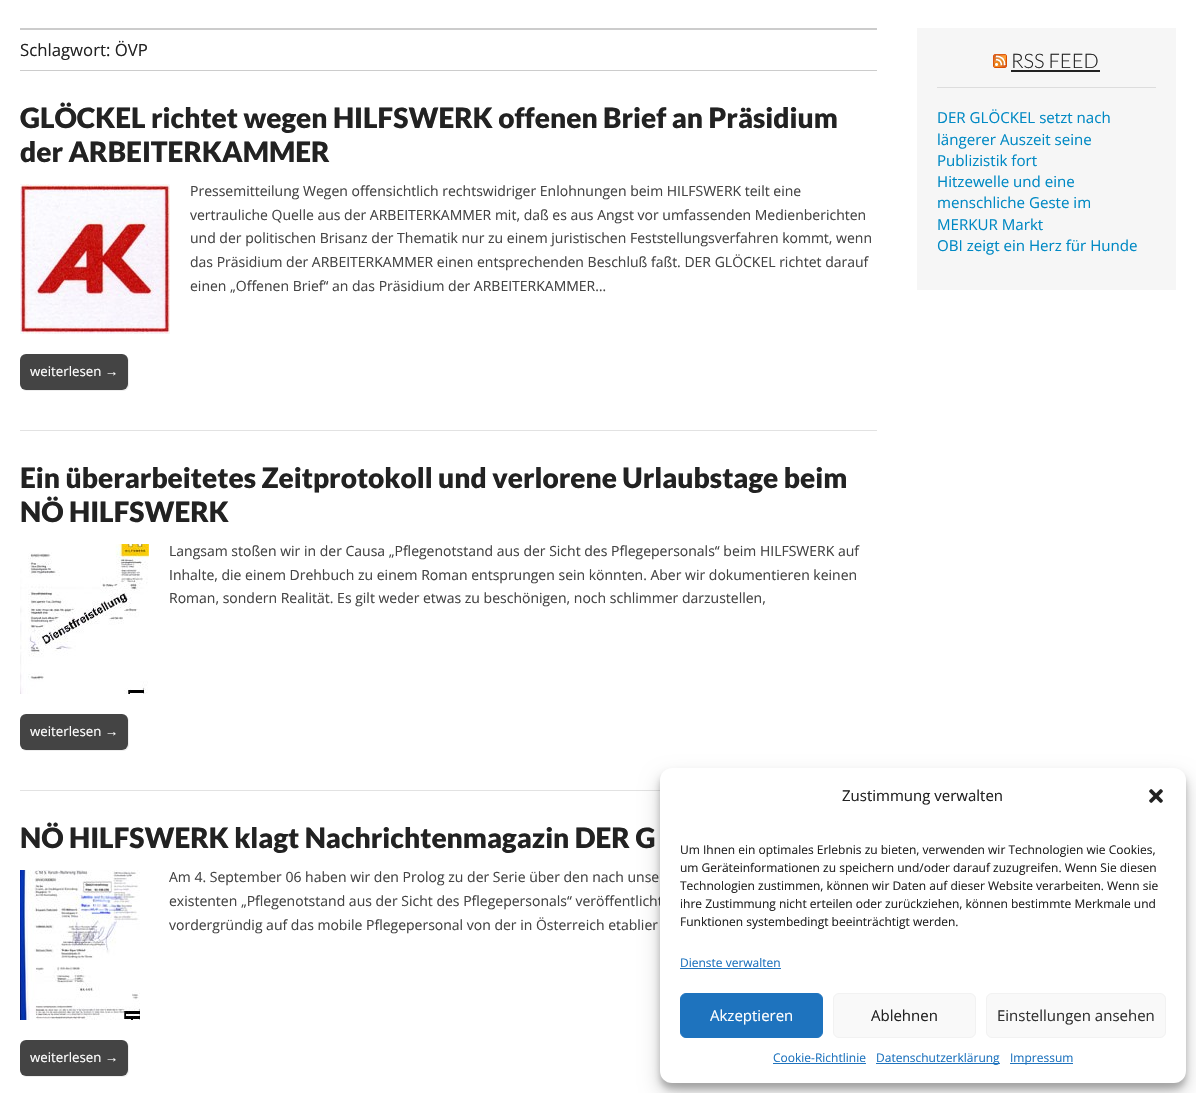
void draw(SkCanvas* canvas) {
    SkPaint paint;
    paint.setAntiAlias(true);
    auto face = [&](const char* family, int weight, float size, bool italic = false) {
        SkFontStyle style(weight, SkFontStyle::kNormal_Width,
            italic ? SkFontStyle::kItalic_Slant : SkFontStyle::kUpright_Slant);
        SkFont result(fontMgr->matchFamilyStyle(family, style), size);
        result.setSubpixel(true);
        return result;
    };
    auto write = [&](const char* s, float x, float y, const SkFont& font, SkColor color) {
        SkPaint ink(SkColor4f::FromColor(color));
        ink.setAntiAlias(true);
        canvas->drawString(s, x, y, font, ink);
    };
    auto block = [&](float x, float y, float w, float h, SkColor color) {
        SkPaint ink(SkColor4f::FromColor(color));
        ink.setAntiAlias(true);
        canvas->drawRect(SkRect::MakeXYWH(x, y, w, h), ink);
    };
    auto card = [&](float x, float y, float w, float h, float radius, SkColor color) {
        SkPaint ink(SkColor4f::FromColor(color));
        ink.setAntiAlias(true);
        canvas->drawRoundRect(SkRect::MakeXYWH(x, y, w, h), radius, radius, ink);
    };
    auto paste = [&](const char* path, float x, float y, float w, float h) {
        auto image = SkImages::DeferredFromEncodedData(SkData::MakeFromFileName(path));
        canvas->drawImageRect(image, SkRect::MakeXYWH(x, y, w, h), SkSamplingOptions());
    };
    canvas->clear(SK_ColorWHITE);
    block(20, 28, 857, 2, SkColorSetRGB(204, 204, 204));
    block(20, 70, 857, 1, SkColorSetRGB(204, 204, 204));
    auto kFont1 = face("Open Sans", 400, 16.75f);
    write("Schlagwort: ÖVP", 20, 56, kFont1, SkColorSetRGB(34, 34, 34));
    block(20, 430, 857, 1, SkColorSetRGB(226, 226, 226));
    auto kFont2 = face("Lato", 900, 28);
    write("GLÖCKEL richtet wegen HILFSWERK offenen Brief an Präsidium", 20, 128, kFont2, SkColorSetRGB(34, 34, 34));
    write("der ARBEITERKAMMER", 20, 162, kFont2, SkColorSetRGB(34, 34, 34));
    paste("pic1.png", 20, 184, 150, 150);
    auto kFont3 = face("Open Sans", 400, 14);
    write("Pressemitteilung Wegen offensichtlich rechtswidriger Enlohnungen beim HILFSWERK teilt eine", 190, 196, kFont3, SkColorSetRGB(68, 68, 68));
    write("vertrauliche Quelle aus der ARBEITERKAMMER mit, daß es aus Angst vor umfassenden Medienberichten", 190, 220, kFont3, SkColorSetRGB(68, 68, 68));
    write("und der politischen Brisanz der Thematik nur zu einem juristischen Feststellungsverfahren kommt, wenn", 190, 243, kFont3, SkColorSetRGB(68, 68, 68));
    write("das Präsidium der ARBEITERKAMMER einen entsprechenden Beschluß faßt. DER GLÖCKEL richtet darauf", 190, 267, kFont3, SkColorSetRGB(68, 68, 68));
    write("einen „Offenen Brief“ an das Präsidium der ARBEITERKAMMER…", 190, 291, kFont3, SkColorSetRGB(68, 68, 68));
    paint.setColor(SkColorSetRGB(238, 238, 238));
    canvas->drawPath(SkPathBuilder().moveTo(22, 389).cubicTo(23, 390, 25, 391, 27, 391).lineTo(123, 391).cubicTo(126, 391, 129, 388, 129, 385).lineTo(129, 361).cubicTo(129, 359, 128, 357, 127, 356).cubicTo(128, 357, 128, 359, 128, 360).lineTo(128, 384).cubicTo(128, 387, 125, 390, 122, 390).lineTo(26, 390).cubicTo(25, 390, 23, 390, 22, 389).close().detach(), paint);
    card(20, 354, 108, 36, 6, SkColorSetRGB(68, 68, 68));
    auto kFont4 = face("Open Sans", 400, 13.25f);
    write("weiterlesen", 30, 376, kFont4, SK_ColorWHITE);
    auto kFont5 = face("Liberation Sans", 400, 13.25f);
    write("→", 105, 376, kFont5, SK_ColorWHITE);
    block(20, 790, 640, 1, SkColorSetRGB(226, 226, 226));
    write("Ein überarbeitetes Zeitprotokoll und verlorene Urlaubstage beim", 20, 488, kFont2, SkColorSetRGB(34, 34, 34));
    write("NÖ HILFSWERK", 20, 522, kFont2, SkColorSetRGB(34, 34, 34));
    paste("pic2.png", 20, 544, 129, 150);
    write("Langsam stoßen wir in der Causa „Pflegenotstand aus der Sicht des Pflegepersonals“ beim HILFSWERK auf", 169, 556, kFont3, SkColorSetRGB(68, 68, 68));
    write("Inhalte, die einem Drehbuch zu einem Roman entsprungen sein könnten. Aber wir dokumentieren keinen", 169, 580, kFont3, SkColorSetRGB(68, 68, 68));
    write("Roman, sondern Realität. Es gilt weder etwas zu beschönigen, noch schlimmer darzustellen,", 169, 603, kFont3, SkColorSetRGB(68, 68, 68));
    canvas->drawPath(SkPathBuilder().moveTo(22, 749).cubicTo(23, 750, 25, 751, 27, 751).lineTo(123, 751).cubicTo(126, 751, 129, 748, 129, 745).lineTo(129, 721).cubicTo(129, 719, 128, 717, 127, 716).cubicTo(128, 717, 128, 719, 128, 720).lineTo(128, 744).cubicTo(128, 747, 125, 750, 122, 750).lineTo(26, 750).cubicTo(25, 750, 23, 750, 22, 749).close().detach(), paint);
    card(20, 714, 108, 36, 6, SkColorSetRGB(68, 68, 68));
    write("weiterlesen", 30, 736, kFont4, SK_ColorWHITE);
    write("→", 105, 736, kFont5, SK_ColorWHITE);
    write("NÖ HILFSWERK klagt Nachrichtenmagazin DER G", 20, 848, kFont2, SkColorSetRGB(34, 34, 34));
    paste("pic3.png", 20, 870, 120, 150);
    write("Am 4. September 06 haben wir den Prolog zu der Serie über den nach unse", 169, 882, kFont3, SkColorSetRGB(68, 68, 68));
    write("existenten „Pflegenotstand aus der Sicht des Pflegepersonals“ veröffentlicht", 169, 906, kFont3, SkColorSetRGB(68, 68, 68));
    write("vordergründig auf das mobile Pflegepersonal von der in Österreich etablier", 169, 930, kFont3, SkColorSetRGB(68, 68, 68));
    canvas->drawPath(SkPathBuilder().moveTo(22, 1075).cubicTo(23, 1076, 25, 1077, 27, 1077).lineTo(123, 1077).cubicTo(126, 1077, 129, 1074, 129, 1071).lineTo(129, 1047).cubicTo(129, 1045, 128, 1043, 127, 1042).cubicTo(128, 1043, 128, 1045, 128, 1046).lineTo(128, 1070).cubicTo(128, 1073, 125, 1076, 122, 1076).lineTo(26, 1076).cubicTo(25, 1076, 23, 1076, 22, 1075).close().detach(), paint);
    card(20, 1040, 108, 36, 6, SkColorSetRGB(68, 68, 68));
    write("weiterlesen", 30, 1062, kFont4, SK_ColorWHITE);
    write("→", 105, 1062, kFont5, SK_ColorWHITE);
    block(917, 28, 259, 262, SkColorSetRGB(246, 246, 246));
    block(937, 87, 219, 1, SkColorSetRGB(221, 221, 221));
    paste("pic4.png", 993, 54, 14, 14);
    auto kFont6 = face("Lato", 300, 20);
    write("RSS FEED", 1011, 68, kFont6, SkColorSetRGB(34, 34, 34));
    block(1011, 70, 89, 2, SkColorSetRGB(34, 34, 34));
    auto kFont7 = face("Open Sans", 400, 15.1f);
    write("DER GLÖCKEL setzt nach", 937, 123, kFont7, SkColorSetRGB(0, 137, 196));
    write("längerer Auszeit seine", 937, 145, kFont7, SkColorSetRGB(0, 137, 196));
    write("Publizistik fort", 937, 166, kFont7, SkColorSetRGB(0, 137, 196));
    write("Hitzewelle und eine", 937, 187, kFont7, SkColorSetRGB(0, 137, 196));
    write("menschliche Geste im", 937, 208, kFont7, SkColorSetRGB(0, 137, 196));
    write("MERKUR Markt", 937, 230, kFont7, SkColorSetRGB(0, 137, 196));
    write("OBI zeigt ein Herz für Hunde", 937, 251, kFont7, SkColorSetRGB(0, 137, 196));
    paint.setColor(SkColorSetARGB(59, 0, 0, 0));
    paint.setMaskFilter(SkMaskFilter::MakeBlur(kNormal_SkBlurStyle, 3));
    canvas->drawRoundRect(SkRect::MakeXYWH(660, 774, 526, 315), 12, 12, paint);
    paint.setMaskFilter(nullptr);
    paint.setColor(SkColorSetARGB(48, 0, 0, 0));
    paint.setMaskFilter(SkMaskFilter::MakeBlur(kNormal_SkBlurStyle, 10));
    canvas->drawRoundRect(SkRect::MakeXYWH(660, 778, 526, 315), 12, 12, paint);
    paint.setMaskFilter(nullptr);
    card(660, 768, 526, 315, 12, SK_ColorWHITE);
    auto kFont8 = face("Open Sans", 400, 15);
    write("Zustimmung verwalten", 842, 801, kFont8, SkColorSetRGB(34, 34, 34));
    paste("pic5.png", 1149, 789, 14, 14);
    auto kFont9 = face("Open Sans", 400, 12);
    write("Um Ihnen ein optimales Erlebnis zu bieten, verwenden wir Technologien wie Cookies,", 680, 854, kFont9, SkColorSetRGB(34, 34, 34));
    write("um Geräteinformationen zu speichern und/oder darauf zuzugreifen. Wenn Sie diesen", 680, 872, kFont9, SkColorSetRGB(34, 34, 34));
    write("Technologien zustimmen, können wir Daten auf dieser Website verarbeiten. Wenn sie", 680, 890, kFont9, SkColorSetRGB(34, 34, 34));
    write("ihre Zustimmung nicht erteilen oder zurückziehen, können bestimmte Merkmale und", 680, 908, kFont9, SkColorSetRGB(34, 34, 34));
    write("Funktionen systembedingt beeinträchtigt werden.", 680, 926, kFont9, SkColorSetRGB(34, 34, 34));
    write("Dienste verwalten", 680, 967, kFont9, SkColorSetRGB(30, 115, 190));
    block(680, 968, 101, 1, SkColorSetRGB(30, 115, 190));
    paint.setColor(SkColorSetRGB(30, 115, 190));
    canvas->drawRoundRect(SkRect::MakeXYWH(680.5f, 993.5f, 142, 44), 5.5f, 5.5f, paint);
    paint.setStyle(SkPaint::kStroke_Style);
    paint.setStrokeWidth(1);
    canvas->drawRoundRect(SkRect::MakeXYWH(680.5f, 993.5f, 142, 44), 5.5f, 5.5f, paint);
    write("Akzeptieren", 710, 1021, kFont8, SK_ColorWHITE);
    paint.setStyle(SkPaint::kFill_Style);
    paint.setColor(SkColorSetRGB(249, 249, 249));
    canvas->drawRoundRect(SkRect::MakeXYWH(833.5f, 993.5f, 142, 44), 5.5f, 5.5f, paint);
    paint.setStyle(SkPaint::kStroke_Style);
    paint.setColor(SkColorSetRGB(242, 242, 242));
    canvas->drawRoundRect(SkRect::MakeXYWH(833.5f, 993.5f, 142, 44), 5.5f, 5.5f, paint);
    write("Ablehnen", 871, 1021, kFont8, SkColorSetRGB(34, 34, 34));
    paint.setStyle(SkPaint::kFill_Style);
    paint.setColor(SkColorSetRGB(249, 249, 249));
    canvas->drawRoundRect(SkRect::MakeXYWH(986.5f, 993.5f, 179, 44), 5.5f, 5.5f, paint);
    paint.setStyle(SkPaint::kStroke_Style);
    paint.setColor(SkColorSetRGB(242, 242, 242));
    canvas->drawRoundRect(SkRect::MakeXYWH(986.5f, 993.5f, 179, 44), 5.5f, 5.5f, paint);
    write("Einstellungen ansehen", 997, 1021, kFont8, SkColorSetRGB(51, 51, 51));
    write("Cookie-Richtlinie", 773, 1062, kFont9, SkColorSetRGB(30, 115, 190));
    block(773, 1063, 93, 1, SkColorSetRGB(30, 115, 190));
    block(876, 1063, 124, 1, SkColorSetRGB(30, 115, 190));
    write("Datenschutzerklärung", 876, 1062, kFont9, SkColorSetRGB(30, 115, 190));
    block(1010, 1063, 63, 1, SkColorSetRGB(30, 115, 190));
    write("Impressum", 1010, 1062, kFont9, SkColorSetRGB(30, 115, 190));
}
